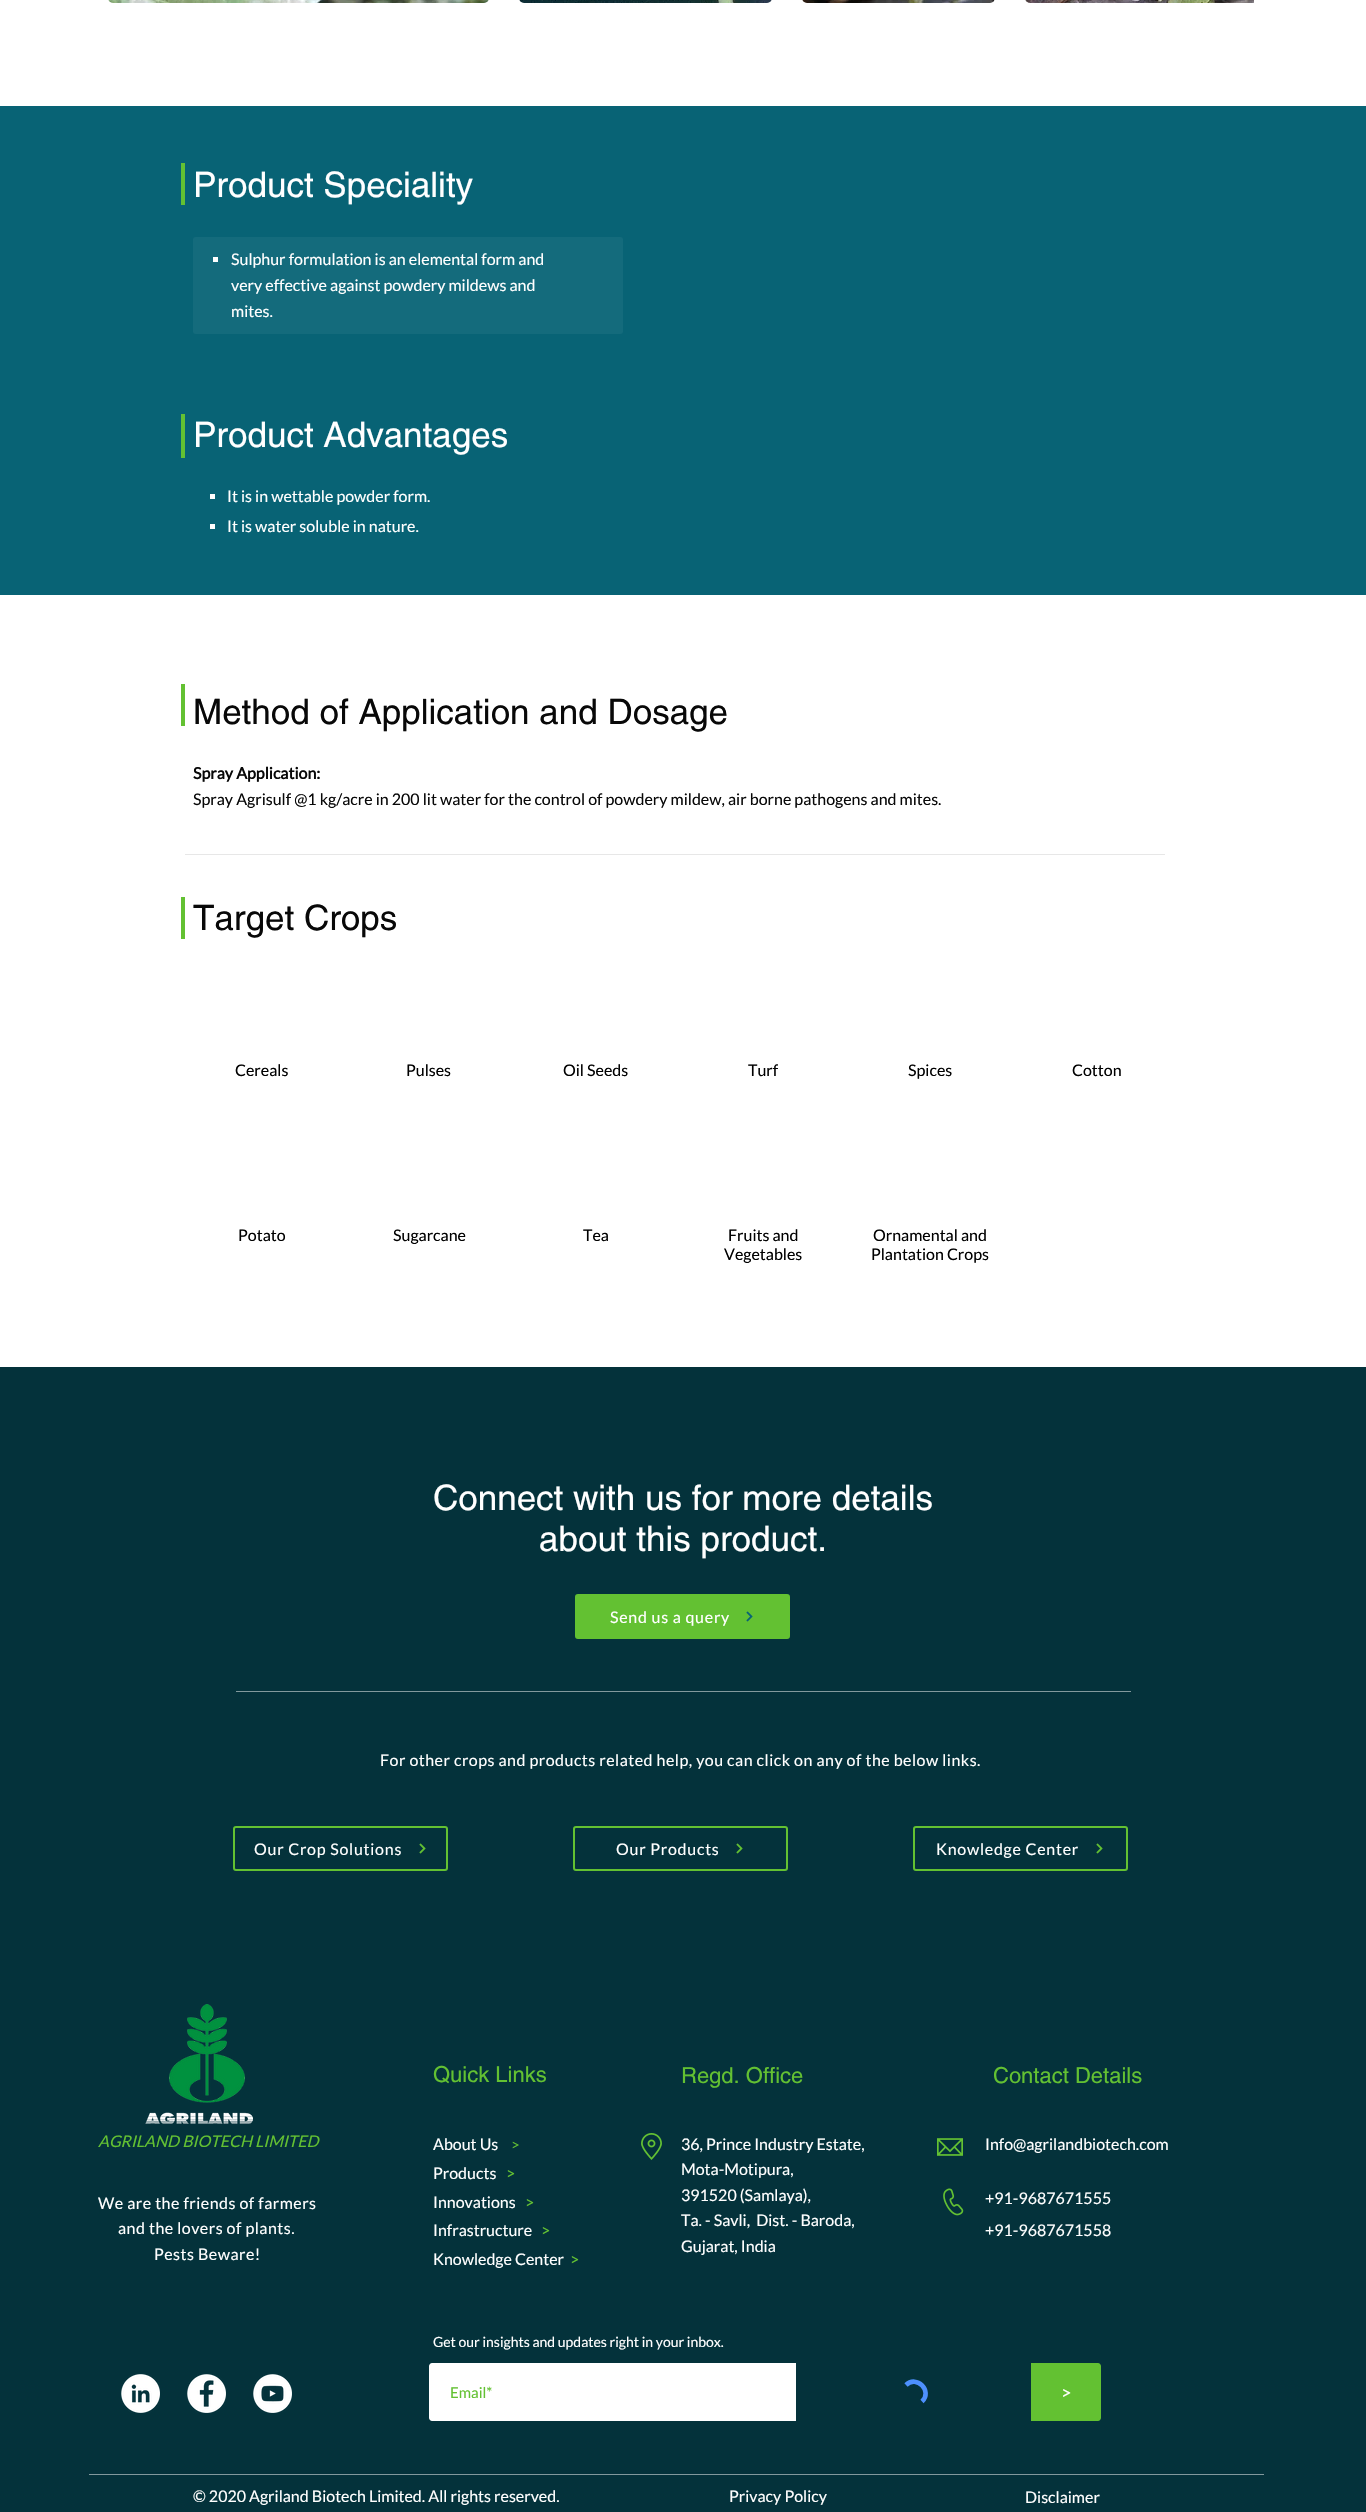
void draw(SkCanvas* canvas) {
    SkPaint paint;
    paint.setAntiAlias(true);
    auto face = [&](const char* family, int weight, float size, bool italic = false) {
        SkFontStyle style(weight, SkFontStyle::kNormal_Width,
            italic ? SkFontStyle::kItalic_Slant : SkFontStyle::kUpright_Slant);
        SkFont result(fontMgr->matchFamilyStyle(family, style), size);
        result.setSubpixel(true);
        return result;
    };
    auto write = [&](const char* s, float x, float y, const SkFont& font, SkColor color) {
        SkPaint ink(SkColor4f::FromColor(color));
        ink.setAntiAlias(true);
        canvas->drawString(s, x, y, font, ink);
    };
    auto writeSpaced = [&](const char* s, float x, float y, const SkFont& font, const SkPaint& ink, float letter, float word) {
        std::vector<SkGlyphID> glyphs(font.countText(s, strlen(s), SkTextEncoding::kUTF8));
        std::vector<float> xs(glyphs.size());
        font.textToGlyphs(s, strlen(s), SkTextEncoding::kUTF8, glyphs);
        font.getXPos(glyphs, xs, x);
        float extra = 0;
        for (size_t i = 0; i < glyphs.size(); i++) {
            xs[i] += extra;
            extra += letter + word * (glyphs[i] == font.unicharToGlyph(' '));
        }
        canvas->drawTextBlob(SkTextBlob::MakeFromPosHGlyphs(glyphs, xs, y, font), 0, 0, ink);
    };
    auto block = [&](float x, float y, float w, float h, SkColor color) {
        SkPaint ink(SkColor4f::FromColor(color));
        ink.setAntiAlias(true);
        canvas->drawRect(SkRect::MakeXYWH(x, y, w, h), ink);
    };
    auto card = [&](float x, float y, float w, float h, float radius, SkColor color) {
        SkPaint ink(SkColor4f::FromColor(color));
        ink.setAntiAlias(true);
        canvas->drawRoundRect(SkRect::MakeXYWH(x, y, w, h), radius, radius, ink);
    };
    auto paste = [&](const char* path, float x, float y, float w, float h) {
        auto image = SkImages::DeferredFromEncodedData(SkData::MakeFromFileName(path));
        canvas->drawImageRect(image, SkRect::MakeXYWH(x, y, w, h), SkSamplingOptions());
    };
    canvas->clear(SK_ColorWHITE);
    paste("pic1.png", 108, 0, 381, 3);
    paste("pic2.png", 519, 0, 253, 3);
    paste("pic3.png", 802, 0, 193, 3);
    paste("pic4.png", 1025, 0, 229, 3);
    block(0, 106, 1366, 489, SkColorSetRGB(8, 99, 117));
    block(181, 163, 4, 42, SkColorSetRGB(99, 193, 50));
    auto kFont1 = face("helvetica", 400, 35);
    write("Product Speciality", 193, 197, kFont1, SK_ColorWHITE);
    card(193, 237, 430, 97, 3, SkColorSetRGB(20, 107, 124));
    block(213, 257, 5, 5, SK_ColorWHITE);
    auto kFont2 = face("Lato", 400, 16);
    write("Sulphur formulation is an elemental form and", 231, 265, kFont2, SK_ColorWHITE);
    write("very effective against powdery mildews and", 231, 291, kFont2, SK_ColorWHITE);
    write("mites.", 231, 317, kFont2, SK_ColorWHITE);
    block(181, 414, 4, 44, SkColorSetRGB(99, 193, 50));
    write("Product Advantages", 193, 447, kFont1, SK_ColorWHITE);
    block(210, 494, 5, 5, SK_ColorWHITE);
    write("It is in wettable powder form.", 227, 502, kFont2, SK_ColorWHITE);
    block(210, 524, 5, 5, SK_ColorWHITE);
    write("It is water soluble in nature.", 227, 532, kFont2, SK_ColorWHITE);
    block(181, 684, 4, 42, SkColorSetRGB(99, 193, 50));
    write("Method of Application and Dosage", 193, 724, kFont1, SkColorSetRGB(8, 8, 8));
    auto kFont3 = face("Lato", 700, 16);
    write("Spray Application:", 193, 779, kFont3, SkColorSetRGB(8, 8, 8));
    write("Spray Agrisulf @1 kg/acre in 200 lit water for the control of powdery mildew, air borne pathogens and mites.", 193, 805, kFont2, SkColorSetRGB(8, 8, 8));
    block(185, 854, 980, 1, SkColorSetRGB(231, 231, 231));
    block(181, 897, 4, 42, SkColorSetRGB(99, 193, 50));
    write("Target Crops", 193, 930, kFont1, SkColorSetRGB(8, 8, 8));
    write("Cereals", 235, 1076, kFont2, SK_ColorBLACK);
    write("Potato", 238, 1241, kFont2, SK_ColorBLACK);
    write("Pulses", 406, 1076, kFont2, SK_ColorBLACK);
    write("Sugarcane", 393, 1241, kFont2, SK_ColorBLACK);
    write("Oil Seeds", 563, 1076, kFont2, SK_ColorBLACK);
    write("Tea", 583, 1241, kFont2, SK_ColorBLACK);
    write("Turf", 748, 1076, kFont2, SK_ColorBLACK);
    write("Fruits and", 728, 1241, kFont2, SK_ColorBLACK);
    write("Vegetables", 724, 1260, kFont2, SK_ColorBLACK);
    write("Spices", 908, 1076, kFont2, SK_ColorBLACK);
    write("Ornamental and", 873, 1241, kFont2, SK_ColorBLACK);
    write("Plantation Crops", 871, 1260, kFont2, SK_ColorBLACK);
    write("Cotton", 1072, 1076, kFont2, SK_ColorBLACK);
    block(0, 1367, 1366, 1145, SkColorSetRGB(4, 50, 59));
    write("Connect with us for more details", 433, 1510, kFont1, SK_ColorWHITE);
    write("about this product.", 539, 1551, kFont1, SK_ColorWHITE);
    paint.setColor(SkColorSetRGB(99, 193, 50));
    canvas->drawRoundRect(SkRect::MakeXYWH(576, 1595, 213, 43), 2, 2, paint);
    paint.setStyle(SkPaint::kStroke_Style);
    paint.setStrokeWidth(2);
    canvas->drawRoundRect(SkRect::MakeXYWH(576, 1595, 213, 43), 2, 2, paint);
    paint.setStyle(SkPaint::kFill_Style);
    paint.setColor(SK_ColorWHITE);
    writeSpaced("Send us a query", 610, 1623, kFont2, paint, 0.75f, 0);
    paste("pic5.png", 746, 1611, 7, 11);
    block(236, 1691, 895, 1, SkColorSetRGB(130, 153, 157));
    writeSpaced("For other crops and products related help, you can click on any of the below links.", 380, 1766, kFont2, paint, 0.48f, 0);
    paint.setStyle(SkPaint::kStroke_Style);
    paint.setColor(SkColorSetRGB(99, 193, 50));
    canvas->drawRoundRect(SkRect::MakeXYWH(234, 1827, 213, 43), 2, 2, paint);
    paint.setStyle(SkPaint::kFill_Style);
    paint.setColor(SK_ColorWHITE);
    writeSpaced("Our Crop Solutions", 254, 1855, kFont2, paint, 0.75f, 0);
    paste("pic6.png", 419, 1843, 7, 11);
    paint.setStyle(SkPaint::kStroke_Style);
    paint.setColor(SkColorSetRGB(99, 193, 50));
    canvas->drawRoundRect(SkRect::MakeXYWH(574, 1827, 213, 43), 2, 2, paint);
    paint.setStyle(SkPaint::kFill_Style);
    paint.setColor(SK_ColorWHITE);
    writeSpaced("Our Products", 616, 1855, kFont2, paint, 0.75f, 0);
    paste("pic6.png", 736, 1843, 7, 11);
    paint.setStyle(SkPaint::kStroke_Style);
    paint.setColor(SkColorSetRGB(99, 193, 50));
    canvas->drawRoundRect(SkRect::MakeXYWH(914, 1827, 213, 43), 2, 2, paint);
    paint.setStyle(SkPaint::kFill_Style);
    paint.setColor(SK_ColorWHITE);
    writeSpaced("Knowledge Center", 936, 1855, kFont2, paint, 0.75f, 0);
    paste("pic6.png", 1096, 1843, 7, 11);
    paste("pic7.png", 169, 2004, 76, 99);
    auto kFont4 = face("helvetica", 400, 22);
    write("Quick Links", 433, 2082, kFont4, SkColorSetRGB(99, 193, 50));
    write("Regd. Office", 681, 2083, kFont4, SkColorSetRGB(99, 193, 50));
    write("Contact Details", 993, 2083, kFont4, SkColorSetRGB(99, 193, 50));
    paste("pic8.png", 145, 2112, 108, 12);
    auto kFont5 = face("Lato", 400, 16, true);
    write("AGRILAND BIOTECH LIMITED", 98, 2147, kFont5, SkColorSetRGB(99, 193, 50));
    write("About Us", 433, 2150, kFont2, SK_ColorWHITE);
    auto kFont6 = face("Lato", 400, 15);
    write(">", 511, 2150, kFont6, SkColorSetRGB(99, 193, 50));
    paste("pic9.png", 641, 2133, 21, 27);
    write("36, Prince Industry Estate,", 681, 2150, kFont2, SK_ColorWHITE);
    write("Mota-Motipura,", 681, 2175, kFont2, SK_ColorWHITE);
    write("391520 (Samlaya),", 681, 2201, kFont2, SK_ColorWHITE);
    write("Ta. - Savli,  Dist. - Baroda,", 681, 2226, kFont2, SK_ColorWHITE);
    write("Gujarat, India", 681, 2252, kFont2, SK_ColorWHITE);
    paste("pic10.png", 937, 2138, 26, 18);
    write("Info@agrilandbiotech.com", 985, 2150, kFont2, SK_ColorWHITE);
    write("Products", 433, 2179, kFont2, SK_ColorWHITE);
    write(">", 506, 2179, kFont2, SkColorSetRGB(99, 193, 50));
    writeSpaced("We are the friends of farmers", 98, 2209, kFont2, paint, 0.48f, 0);
    writeSpaced("and the lovers of plants.", 118, 2234, kFont2, paint, 0.48f, 0);
    writeSpaced("Pests Beware!", 154, 2260, kFont2, paint, 0.48f, 0);
    write("Innovations", 433, 2208, kFont2, SK_ColorWHITE);
    write(">", 525, 2208, kFont2, SkColorSetRGB(99, 193, 50));
    paste("pic11.png", 943, 2188, 21, 28);
    write("+91-9687671555", 985, 2204, kFont2, SK_ColorWHITE);
    write("Infrastructure", 433, 2236, kFont2, SK_ColorWHITE);
    write(">", 541, 2236, kFont2, SkColorSetRGB(99, 193, 50));
    write("+91-9687671558", 985, 2236, kFont2, SK_ColorWHITE);
    write("Knowledge Center", 433, 2265, kFont2, SK_ColorWHITE);
    write(">", 570, 2265, kFont2, SkColorSetRGB(99, 193, 50));
    auto kFont7 = face("Lato", 400, 14);
    write("Get our insights and updates right in your inbox.", 433, 2347, kFont7, SK_ColorWHITE);
    paste("pic12.png", 121, 2374, 39, 39);
    paste("pic13.png", 187, 2374, 39, 39);
    paste("pic14.png", 253, 2374, 39, 39);
    canvas->drawPath(SkPathBuilder().moveTo(432, 2363).lineTo(796, 2363).lineTo(796, 2421).lineTo(432, 2421).cubicTo(430.5f, 2421, 429, 2419.5f, 429, 2418).lineTo(429, 2366).cubicTo(429, 2364.5f, 430.5f, 2363, 432, 2363).close().detach(), paint);
    write("Email*", 450, 2398, kFont6, SkColorSetRGB(99, 193, 50));
    paint.setStyle(SkPaint::kStroke_Style);
    paint.setStrokeWidth(4.6f);
    paint.setColor(SkColorSetRGB(77, 144, 254));
    canvas->drawPath(SkPathBuilder().moveTo(906, 2385).cubicTo(916.5f, 2374.5f, 933, 2391, 922, 2401.5f).detach(), paint);
    paint.setStyle(SkPaint::kFill_Style);
    paint.setColor(SkColorSetRGB(99, 193, 50));
    canvas->drawPath(SkPathBuilder().moveTo(1031, 2363).lineTo(1098, 2363).cubicTo(1099.5f, 2363, 1101, 2364.5f, 1101, 2366).lineTo(1101, 2418).cubicTo(1101, 2419.5f, 1099.5f, 2421, 1098, 2421).lineTo(1031, 2421).close().detach(), paint);
    auto kFont8 = face("Lato", 400, 18);
    write(">", 1061, 2399, kFont8, SK_ColorWHITE);
    block(89, 2474, 1175, 1, SkColorSetRGB(130, 153, 157));
    write("© 2020 Agriland Biotech Limited. All rights reserved.", 193, 2502, kFont2, SK_ColorWHITE);
    write("Privacy Policy", 729, 2502, kFont2, SK_ColorWHITE);
    write("Disclaimer", 1025, 2503, kFont2, SK_ColorWHITE);
}
